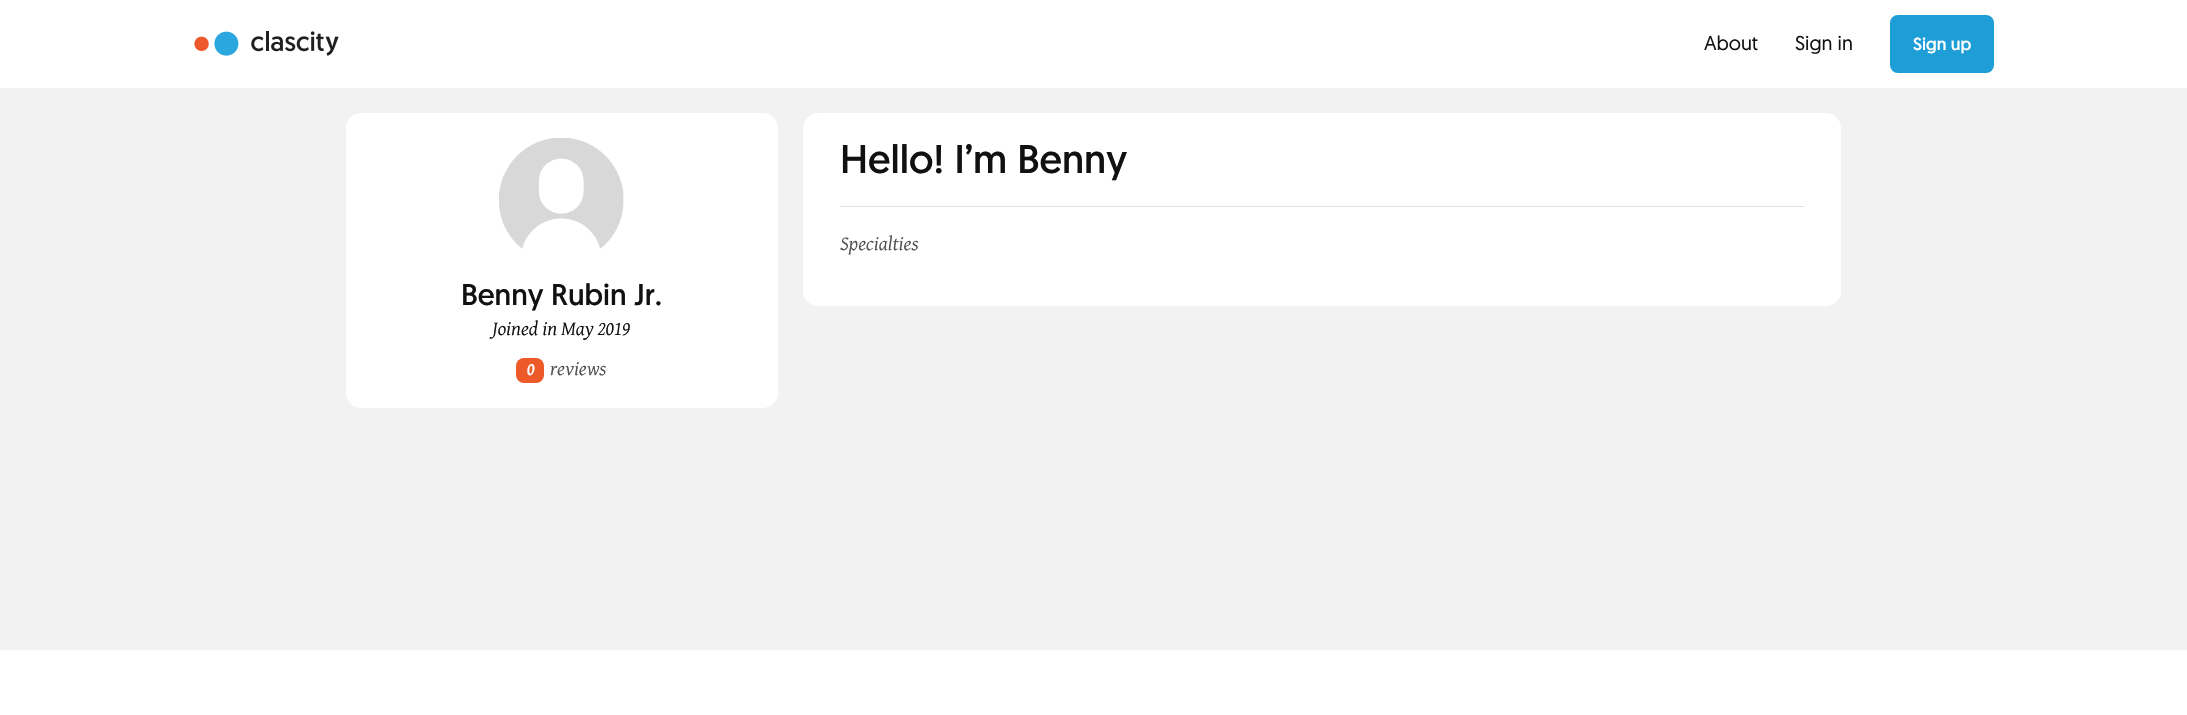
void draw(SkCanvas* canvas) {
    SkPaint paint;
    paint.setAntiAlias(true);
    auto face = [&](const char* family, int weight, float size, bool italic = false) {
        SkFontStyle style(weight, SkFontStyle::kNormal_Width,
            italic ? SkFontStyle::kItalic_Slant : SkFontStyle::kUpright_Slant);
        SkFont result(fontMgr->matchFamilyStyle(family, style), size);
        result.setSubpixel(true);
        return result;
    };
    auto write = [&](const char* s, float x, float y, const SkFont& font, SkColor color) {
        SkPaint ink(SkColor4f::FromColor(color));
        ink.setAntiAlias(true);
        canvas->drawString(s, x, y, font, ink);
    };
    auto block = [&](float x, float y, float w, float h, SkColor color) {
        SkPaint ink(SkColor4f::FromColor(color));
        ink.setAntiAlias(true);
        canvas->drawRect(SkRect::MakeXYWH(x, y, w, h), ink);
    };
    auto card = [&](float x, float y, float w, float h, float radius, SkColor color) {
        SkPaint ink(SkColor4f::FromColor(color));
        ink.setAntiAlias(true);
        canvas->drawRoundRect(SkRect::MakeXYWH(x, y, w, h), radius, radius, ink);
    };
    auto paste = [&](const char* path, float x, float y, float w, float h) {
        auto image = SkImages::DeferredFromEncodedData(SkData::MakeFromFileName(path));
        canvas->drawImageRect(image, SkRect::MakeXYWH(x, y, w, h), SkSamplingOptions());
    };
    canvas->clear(SkColorSetRGB(242, 242, 242));
    block(0, 0, 2187, 88, SK_ColorWHITE);
    paste("pic1.png", 194, 31, 145, 25);
    auto kFont1 = face("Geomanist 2", 400, 20);
    write("About", 1704, 50, kFont1, SkColorSetRGB(17, 17, 17));
    write("Sign in", 1795, 50, kFont1, SkColorSetRGB(17, 17, 17));
    card(1890, 15, 104, 58, 8, SkColorSetRGB(30, 158, 215));
    auto kFont2 = face("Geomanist", 400, 17.5f);
    write("Sign up", 1913, 50, kFont2, SK_ColorWHITE);
    card(803, 113, 1038, 193, 15, SK_ColorWHITE);
    block(840, 206, 964, 1, SkColorSetRGB(226, 226, 226));
    auto kFont3 = face("Geomanist", 400, 40);
    write("Hello! I’m Benny", 840, 173, kFont3, SkColorSetRGB(17, 17, 17));
    auto kFont4 = face("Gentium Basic", 400, 20, true);
    write("Specialties", 840, 250, kFont4, SkColorSetRGB(80, 80, 80));
    card(346, 113, 432, 295, 15, SK_ColorWHITE);
    paste("pic2.png", 499, 138, 125, 111);
    auto kFont5 = face("Geomanist", 400, 30);
    write("Benny Rubin Jr.", 461, 305, kFont5, SkColorSetRGB(17, 17, 17));
    write("Joined in May 2019", 492, 335, kFont4, SkColorSetRGB(17, 17, 17));
    card(516, 358, 28, 25, 8, SkColorSetRGB(238, 89, 42));
    auto kFont6 = face("Gentium Basic", 700, 17.5f, true);
    write("0", 527, 375, kFont6, SK_ColorWHITE);
    write("reviews", 550, 375, kFont4, SkColorSetRGB(80, 80, 80));
    block(0, 650, 2187, 65, SK_ColorWHITE);
}
